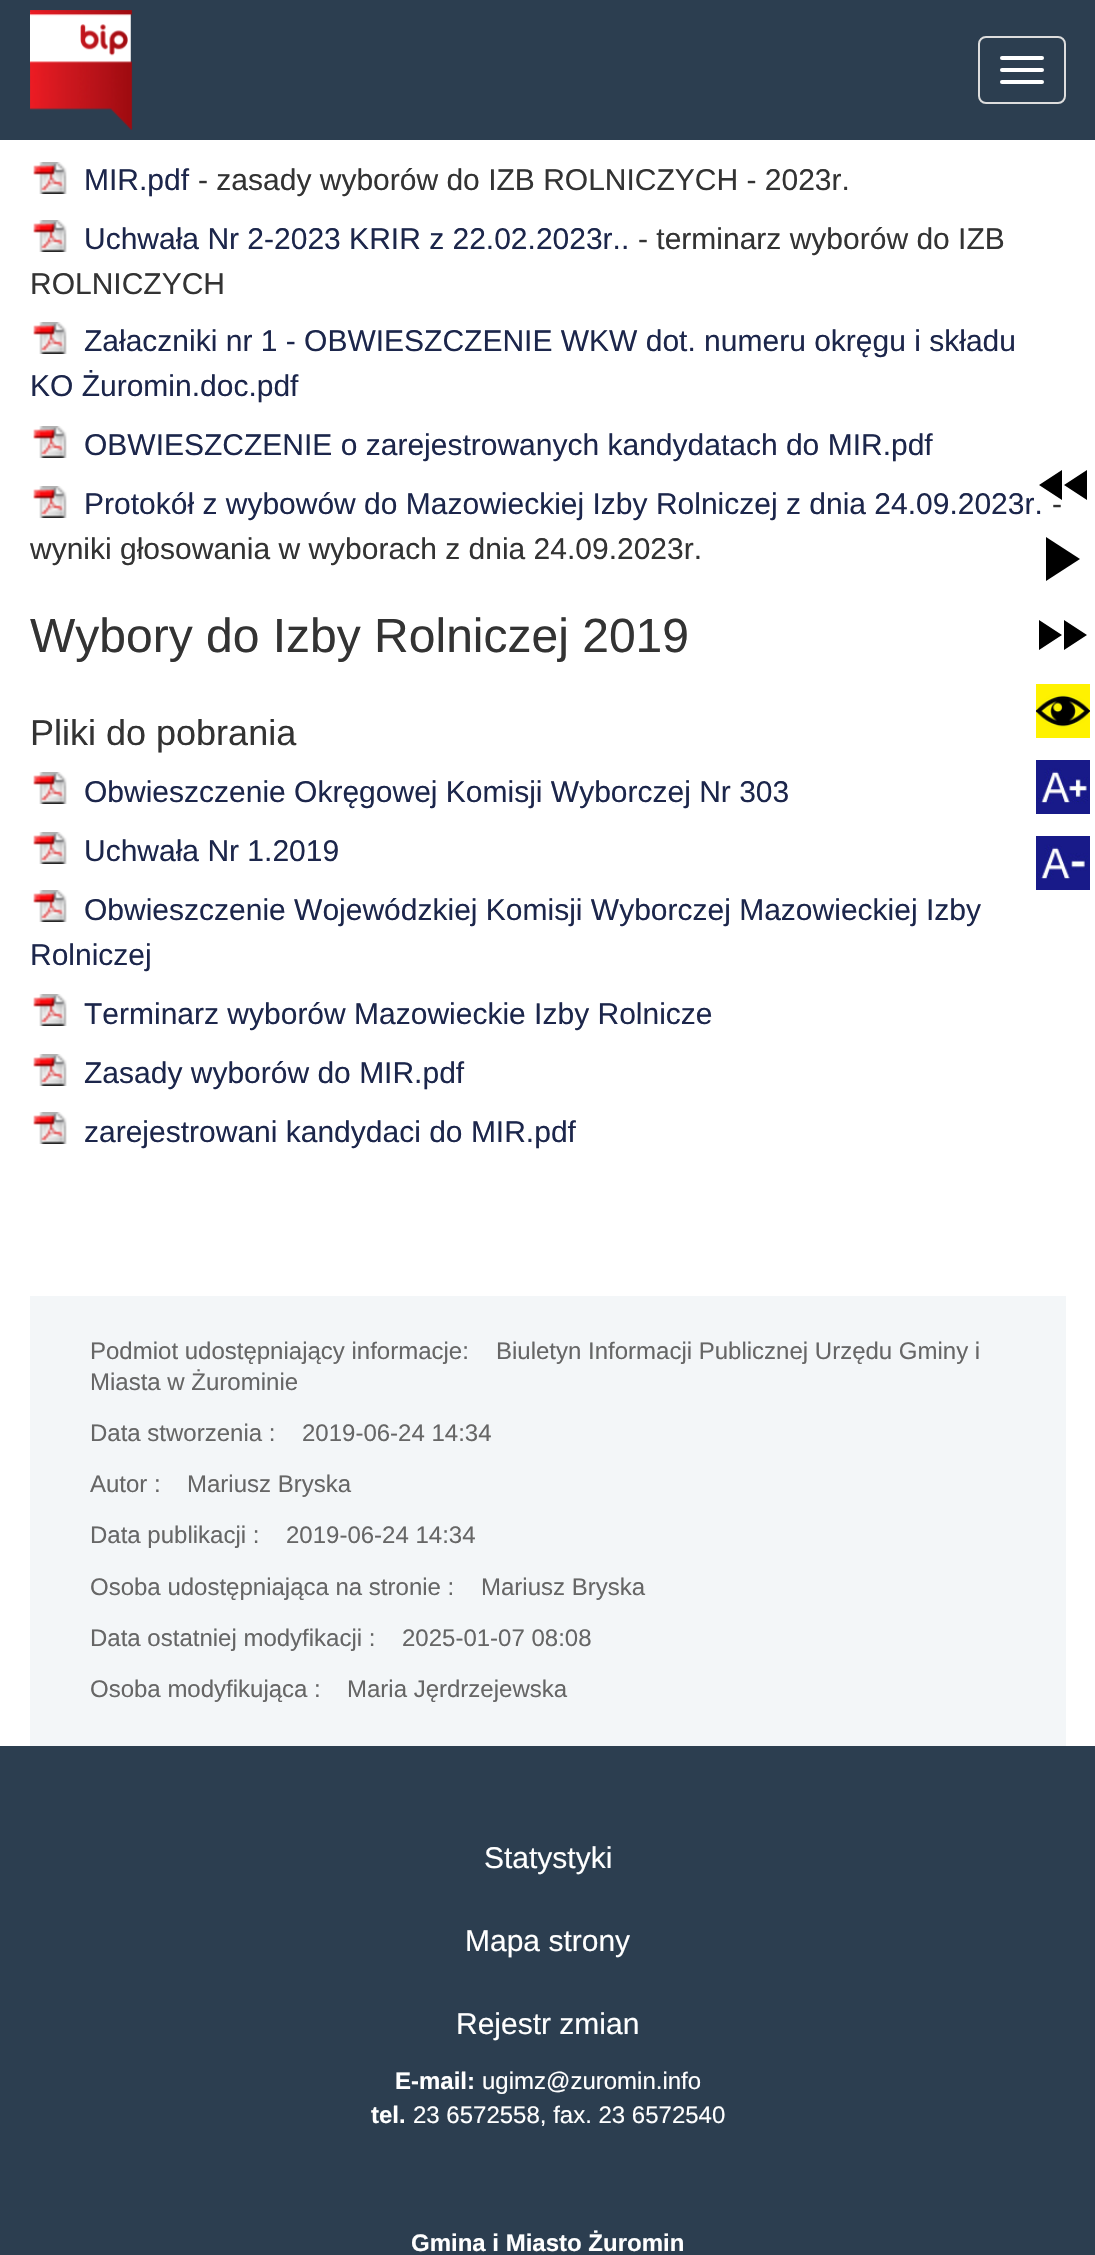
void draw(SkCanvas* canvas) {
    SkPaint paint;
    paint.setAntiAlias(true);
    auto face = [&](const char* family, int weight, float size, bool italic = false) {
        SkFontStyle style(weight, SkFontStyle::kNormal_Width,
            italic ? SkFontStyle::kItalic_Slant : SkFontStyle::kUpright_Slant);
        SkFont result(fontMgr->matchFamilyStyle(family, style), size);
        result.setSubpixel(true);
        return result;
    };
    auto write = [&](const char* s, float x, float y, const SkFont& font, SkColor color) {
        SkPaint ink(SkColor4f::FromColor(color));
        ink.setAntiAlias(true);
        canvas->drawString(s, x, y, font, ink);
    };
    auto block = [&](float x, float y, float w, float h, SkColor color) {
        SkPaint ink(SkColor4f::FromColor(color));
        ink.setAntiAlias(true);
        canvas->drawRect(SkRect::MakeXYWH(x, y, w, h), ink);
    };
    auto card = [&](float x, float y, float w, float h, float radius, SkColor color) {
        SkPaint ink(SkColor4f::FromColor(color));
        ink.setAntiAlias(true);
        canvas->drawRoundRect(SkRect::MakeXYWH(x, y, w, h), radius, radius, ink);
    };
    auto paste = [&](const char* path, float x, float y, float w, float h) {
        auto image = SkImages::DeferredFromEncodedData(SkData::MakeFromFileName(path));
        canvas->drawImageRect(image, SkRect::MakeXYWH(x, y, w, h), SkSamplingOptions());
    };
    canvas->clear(SK_ColorWHITE);
    block(0, 0, 1095, 140, SkColorSetRGB(44, 62, 80));
    paste("pic1.png", 30, 10, 103, 120);
    paint.setStyle(SkPaint::kStroke_Style);
    paint.setStrokeWidth(2);
    paint.setColor(SkColorSetRGB(221, 221, 221));
    canvas->drawRoundRect(SkRect::MakeXYWH(979, 37, 86, 66), 7, 7, paint);
    card(1000, 56, 44, 4, 2, SK_ColorWHITE);
    card(1000, 68, 44, 4, 2, SK_ColorWHITE);
    card(1000, 80, 44, 4, 2, SK_ColorWHITE);
    paste("pic2.png", 33, 162, 34, 32);
    auto kFont1 = face("Liberation Sans", 400, 30);
    write("MIR.pdf", 84, 190, kFont1, SkColorSetRGB(28, 38, 75));
    write("- zasady wyborów do IZB ROLNICZYCH - 2023r.", 198, 190, kFont1, SkColorSetRGB(51, 51, 51));
    paste("pic2.png", 33, 220, 34, 32);
    write("Uchwała Nr 2-2023 KRIR z 22.02.2023r..", 84, 249, kFont1, SkColorSetRGB(28, 38, 75));
    write("- terminarz wyborów do IZB", 638, 249, kFont1, SkColorSetRGB(51, 51, 51));
    write("ROLNICZYCH", 30, 294, kFont1, SkColorSetRGB(51, 51, 51));
    paste("pic2.png", 33, 322, 34, 32);
    write("Załaczniki nr 1 - OBWIESZCZENIE WKW dot. numeru okręgu i składu", 84, 351, kFont1, SkColorSetRGB(28, 38, 75));
    write("KO Żuromin.doc.pdf", 30, 396, kFont1, SkColorSetRGB(28, 38, 75));
    paste("pic2.png", 33, 426, 34, 32);
    write("OBWIESZCZENIE o zarejestrowanych kandydatach do MIR.pdf", 84, 455, kFont1, SkColorSetRGB(28, 38, 75));
    paste("pic2.png", 33, 486, 34, 32);
    write("Protokół z wybowów do Mazowieckiej Izby Rolniczej z dnia 24.09.2023r.", 84, 514, kFont1, SkColorSetRGB(28, 38, 75));
    write("-", 1052, 514, kFont1, SkColorSetRGB(51, 51, 51));
    write("wyniki głosowania w wyborach z dnia 24.09.2023r.", 30, 559, kFont1, SkColorSetRGB(51, 51, 51));
    auto kFont2 = face("Liberation Sans", 400, 48);
    write("Wybory do Izby Rolniczej 2019", 30, 652, kFont2, SkColorSetRGB(51, 51, 51));
    auto kFont3 = face("Liberation Sans", 400, 36);
    write("Pliki do pobrania", 30, 745, kFont3, SkColorSetRGB(51, 51, 51));
    paste("pic2.png", 33, 772, 34, 32);
    write("Obwieszczenie Okręgowej Komisji Wyborczej Nr 303", 84, 802, kFont1, SkColorSetRGB(28, 38, 75));
    paste("pic2.png", 33, 832, 34, 32);
    write("Uchwała Nr 1.2019", 84, 861, kFont1, SkColorSetRGB(28, 38, 75));
    paste("pic2.png", 33, 890, 34, 32);
    write("Obwieszczenie Wojewódzkiej Komisji Wyborczej Mazowieckiej Izby", 84, 920, kFont1, SkColorSetRGB(28, 38, 75));
    write("Rolniczej", 30, 965, kFont1, SkColorSetRGB(28, 38, 75));
    paste("pic2.png", 33, 994, 34, 32);
    write("Terminarz wyborów Mazowieckie Izby Rolnicze", 84, 1024, kFont1, SkColorSetRGB(28, 38, 75));
    paste("pic2.png", 33, 1054, 34, 32);
    write("Zasady wyborów do MIR.pdf", 84, 1083, kFont1, SkColorSetRGB(28, 38, 75));
    paste("pic2.png", 33, 1112, 34, 32);
    write("zarejestrowani kandydaci do MIR.pdf", 84, 1142, kFont1, SkColorSetRGB(28, 38, 75));
    block(30, 1296, 1036, 450, SkColorSetRGB(243, 246, 248));
    auto kFont4 = face("Liberation Sans", 400, 24);
    write("Podmiot udostępniający informacje:", 90, 1359, kFont4, SkColorSetRGB(102, 102, 102));
    write("Biuletyn Informacji Publicznej Urzędu Gminy i", 496, 1359, kFont4, SkColorSetRGB(102, 102, 102));
    write("Miasta w Żurominie", 90, 1390, kFont4, SkColorSetRGB(102, 102, 102));
    write("Data stworzenia :", 90, 1441, kFont4, SkColorSetRGB(102, 102, 102));
    write("2019-06-24 14:34", 302, 1441, kFont4, SkColorSetRGB(102, 102, 102));
    write("Autor :", 90, 1492, kFont4, SkColorSetRGB(102, 102, 102));
    write("Mariusz Bryska", 187, 1492, kFont4, SkColorSetRGB(102, 102, 102));
    write("Data publikacji :", 90, 1543, kFont4, SkColorSetRGB(102, 102, 102));
    write("2019-06-24 14:34", 286, 1543, kFont4, SkColorSetRGB(102, 102, 102));
    write("Osoba udostępniająca na stronie :", 90, 1595, kFont4, SkColorSetRGB(102, 102, 102));
    write("Mariusz Bryska", 481, 1595, kFont4, SkColorSetRGB(102, 102, 102));
    write("Data ostatniej modyfikacji :", 90, 1646, kFont4, SkColorSetRGB(102, 102, 102));
    write("2025-01-07 08:08", 402, 1646, kFont4, SkColorSetRGB(102, 102, 102));
    write("Osoba modyfikująca :", 90, 1697, kFont4, SkColorSetRGB(102, 102, 102));
    write("Maria Jęrdrzejewska", 347, 1697, kFont4, SkColorSetRGB(102, 102, 102));
    paint.setStyle(SkPaint::kFill_Style);
    paint.setColor(SK_ColorBLACK);
    canvas->drawPath(SkPathBuilder().moveTo(1062, 500).lineTo(1062, 470).lineTo(1039, 485).close().moveTo(1064, 485).lineTo(1087, 500).lineTo(1087, 470).close().detach(), paint);
    canvas->drawPath(SkPathBuilder().moveTo(1046, 537).lineTo(1046, 581).lineTo(1080, 559).close().detach(), paint);
    canvas->drawPath(SkPathBuilder().moveTo(1087, 635).lineTo(1064, 620).lineTo(1064, 650).close().moveTo(1039, 620).lineTo(1039, 650).lineTo(1062, 635).close().detach(), paint);
    paste("pic3.png", 1036, 684, 54, 54);
    paste("pic4.png", 1036, 760, 54, 54);
    paste("pic5.png", 1036, 836, 54, 54);
    block(0, 1746, 1095, 509, SkColorSetRGB(44, 62, 80));
    write("Statystyki", 484, 1868, kFont1, SK_ColorWHITE);
    write("Mapa strony", 465, 1951, kFont1, SK_ColorWHITE);
    write("Rejestr zmian", 456, 2034, kFont1, SK_ColorWHITE);
    auto kFont5 = face("Liberation Sans", 700, 24);
    write("E-mail:", 395, 2089, kFont5, SK_ColorWHITE);
    write("ugimz@zuromin.info", 482, 2089, kFont4, SK_ColorWHITE);
    write("tel.", 371, 2123, kFont5, SK_ColorWHITE);
    write("23 6572558, fax. 23 6572540", 413, 2123, kFont4, SK_ColorWHITE);
    write("Gmina i Miasto Żuromin", 411, 2251, kFont5, SK_ColorWHITE);
}
